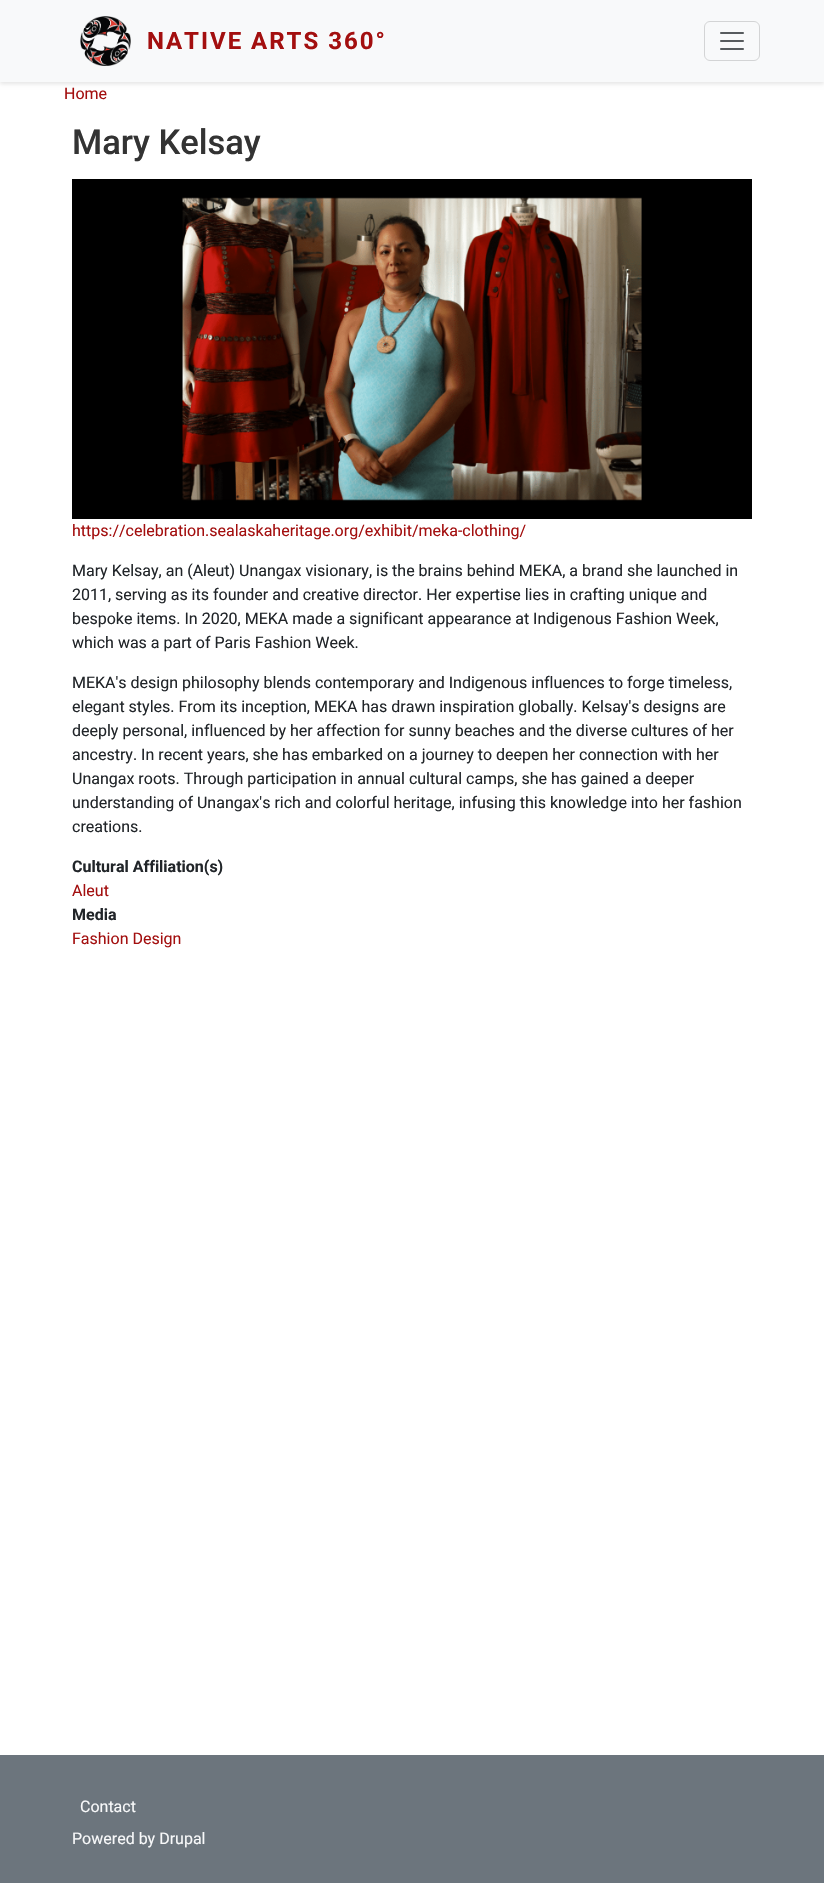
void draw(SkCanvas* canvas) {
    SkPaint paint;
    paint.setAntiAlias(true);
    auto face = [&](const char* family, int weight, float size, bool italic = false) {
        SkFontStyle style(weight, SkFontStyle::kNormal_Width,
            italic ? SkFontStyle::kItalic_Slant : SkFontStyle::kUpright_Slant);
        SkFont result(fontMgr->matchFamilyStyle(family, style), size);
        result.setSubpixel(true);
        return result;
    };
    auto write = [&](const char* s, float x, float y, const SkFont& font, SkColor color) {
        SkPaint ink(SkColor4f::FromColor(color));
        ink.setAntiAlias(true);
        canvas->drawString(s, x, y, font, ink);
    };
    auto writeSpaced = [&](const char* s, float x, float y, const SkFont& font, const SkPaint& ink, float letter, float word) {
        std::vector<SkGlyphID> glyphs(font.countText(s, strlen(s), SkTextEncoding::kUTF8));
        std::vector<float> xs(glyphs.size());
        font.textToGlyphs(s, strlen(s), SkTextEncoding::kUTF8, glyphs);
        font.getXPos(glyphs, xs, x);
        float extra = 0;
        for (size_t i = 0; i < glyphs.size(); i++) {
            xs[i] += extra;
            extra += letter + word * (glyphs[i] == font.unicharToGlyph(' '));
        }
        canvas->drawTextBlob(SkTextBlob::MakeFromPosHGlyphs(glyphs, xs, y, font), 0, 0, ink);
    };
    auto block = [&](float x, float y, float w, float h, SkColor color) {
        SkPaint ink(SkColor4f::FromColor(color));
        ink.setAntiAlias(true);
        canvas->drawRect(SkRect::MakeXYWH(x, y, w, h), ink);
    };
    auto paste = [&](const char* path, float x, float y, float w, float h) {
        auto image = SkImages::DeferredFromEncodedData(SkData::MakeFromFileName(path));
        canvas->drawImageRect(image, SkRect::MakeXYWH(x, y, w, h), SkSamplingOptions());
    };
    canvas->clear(SK_ColorWHITE);
    paint.setColor(SkColorSetARGB(26, 0, 0, 0));
    paint.setMaskFilter(SkMaskFilter::MakeBlur(kNormal_SkBlurStyle, 2));
    canvas->drawRect(SkRect::MakeXYWH(0, 2, 824, 82), paint);
    paint.setMaskFilter(nullptr);
    block(0, 0, 824, 82, SkColorSetRGB(248, 249, 250));
    paste("pic1.png", 80, 16, 51, 50);
    auto kFont1 = face("Roboto", 700, 24);
    paint.setColor(SkColorSetRGB(163, 15, 15));
    writeSpaced("NATIVE ARTS 360°", 147, 49, kFont1, paint, 2, 0);
    paint.setStyle(SkPaint::kStroke_Style);
    paint.setStrokeWidth(1);
    paint.setColor(SkColorSetRGB(211, 212, 213));
    canvas->drawRoundRect(SkRect::MakeXYWH(704.5f, 21.5f, 55, 39), 5.5f, 5.5f, paint);
    paste("pic2.png", 720, 32, 24, 18);
    auto kFont2 = face("Roboto", 400, 16);
    write("Home", 64, 99, kFont2, SkColorSetRGB(163, 15, 15));
    auto kFont3 = face("Roboto", 500, 34.5f);
    write("Mary Kelsay", 72, 154, kFont3, SkColorSetRGB(51, 51, 51));
    paste("pic3.png", 72, 179, 680, 340);
    write("https://celebration.sealaskaheritage.org/exhibit/meka-clothing/", 72, 536, kFont2, SkColorSetRGB(163, 15, 15));
    write("Mary Kelsay, an (Aleut) Unangax visionary, is the brains behind MEKA, a brand she launched in", 72, 576, kFont2, SkColorSetRGB(33, 37, 41));
    write("2011, serving as its founder and creative director. Her expertise lies in crafting unique and", 72, 600, kFont2, SkColorSetRGB(33, 37, 41));
    write("bespoke items. In 2020, MEKA made a significant appearance at Indigenous Fashion Week,", 72, 624, kFont2, SkColorSetRGB(33, 37, 41));
    write("which was a part of Paris Fashion Week.", 72, 648, kFont2, SkColorSetRGB(33, 37, 41));
    write("MEKA's design philosophy blends contemporary and Indigenous influences to forge timeless,", 72, 688, kFont2, SkColorSetRGB(33, 37, 41));
    write("elegant styles. From its inception, MEKA has drawn inspiration globally. Kelsay's designs are", 72, 712, kFont2, SkColorSetRGB(33, 37, 41));
    write("deeply personal, influenced by her affection for sunny beaches and the diverse cultures of her", 72, 736, kFont2, SkColorSetRGB(33, 37, 41));
    write("ancestry. In recent years, she has embarked on a journey to deepen her connection with her", 72, 760, kFont2, SkColorSetRGB(33, 37, 41));
    write("Unangax roots. Through participation in annual cultural camps, she has gained a deeper", 72, 784, kFont2, SkColorSetRGB(33, 37, 41));
    write("understanding of Unangax's rich and colorful heritage, infusing this knowledge into her fashion", 72, 808, kFont2, SkColorSetRGB(33, 37, 41));
    write("creations.", 72, 832, kFont2, SkColorSetRGB(33, 37, 41));
    auto kFont4 = face("Roboto", 700, 16);
    write("Cultural Affiliation(s)", 72, 872, kFont4, SkColorSetRGB(33, 37, 41));
    write("Aleut", 72, 896, kFont2, SkColorSetRGB(163, 15, 15));
    write("Media", 72, 920, kFont4, SkColorSetRGB(33, 37, 41));
    write("Fashion Design", 72, 944, kFont2, SkColorSetRGB(163, 15, 15));
    block(0, 1755, 824, 128, SkColorSetRGB(108, 117, 125));
    write("Contact", 80, 1812, kFont2, SkColorSetRGB(248, 249, 250));
    write("Powered by Drupal", 72, 1844, kFont2, SkColorSetRGB(248, 249, 250));
}
